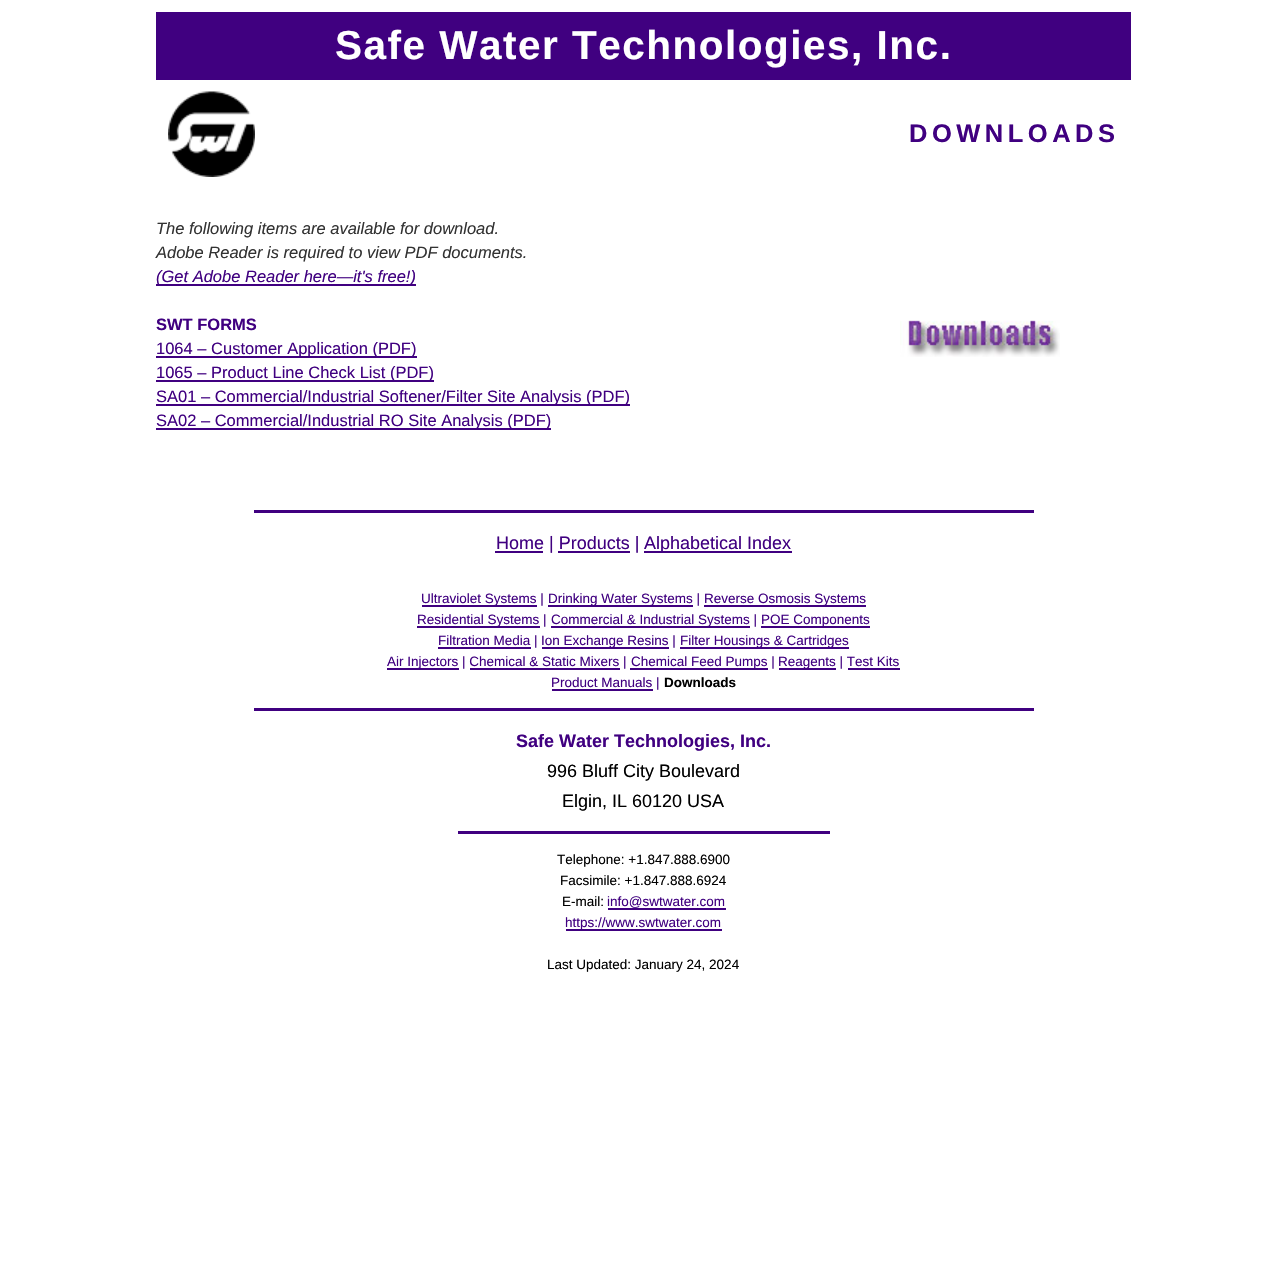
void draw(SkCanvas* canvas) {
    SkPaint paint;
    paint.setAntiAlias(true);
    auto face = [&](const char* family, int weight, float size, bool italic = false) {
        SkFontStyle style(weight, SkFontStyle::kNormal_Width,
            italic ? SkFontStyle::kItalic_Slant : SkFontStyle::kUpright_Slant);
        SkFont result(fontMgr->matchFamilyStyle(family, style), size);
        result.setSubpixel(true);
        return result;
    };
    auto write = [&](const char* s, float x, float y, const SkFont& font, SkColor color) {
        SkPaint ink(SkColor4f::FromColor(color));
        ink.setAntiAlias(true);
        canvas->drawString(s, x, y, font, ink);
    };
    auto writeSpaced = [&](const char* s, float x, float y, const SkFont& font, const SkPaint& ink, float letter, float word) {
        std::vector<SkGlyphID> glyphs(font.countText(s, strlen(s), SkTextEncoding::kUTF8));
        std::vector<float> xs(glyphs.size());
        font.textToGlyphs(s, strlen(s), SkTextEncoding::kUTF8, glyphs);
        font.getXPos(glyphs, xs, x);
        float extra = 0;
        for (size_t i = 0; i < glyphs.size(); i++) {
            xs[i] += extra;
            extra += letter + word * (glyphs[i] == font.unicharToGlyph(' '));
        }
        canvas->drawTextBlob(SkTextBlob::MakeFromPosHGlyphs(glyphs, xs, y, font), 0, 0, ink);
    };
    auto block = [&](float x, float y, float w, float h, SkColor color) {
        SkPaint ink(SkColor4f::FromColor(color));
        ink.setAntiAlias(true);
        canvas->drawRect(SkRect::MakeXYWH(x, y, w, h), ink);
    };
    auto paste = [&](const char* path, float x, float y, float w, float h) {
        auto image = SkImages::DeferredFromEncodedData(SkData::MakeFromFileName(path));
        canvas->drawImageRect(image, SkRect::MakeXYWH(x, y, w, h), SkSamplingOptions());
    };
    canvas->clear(SK_ColorWHITE);
    block(156, 12, 975, 68, SkColorSetRGB(64, 0, 128));
    auto kFont1 = face("Liberation Sans", 700, 40.5f);
    paint.setColor(SK_ColorWHITE);
    writeSpaced("Safe Water Technologies, Inc.", 335, 59, kFont1, paint, 1.5f, 0);
    paste("pic1.png", 168, 91, 87, 86);
    auto kFont2 = face("Liberation Sans", 700, 25.5f);
    paint.setColor(SkColorSetRGB(64, 0, 128));
    writeSpaced("DOWNLOADS", 909, 142, kFont2, paint, 4.5f, 0);
    auto kFont3 = face("Liberation Sans", 400, 16.5f, true);
    write("The following items are available for download.", 156, 234, kFont3, SkColorSetRGB(51, 51, 51));
    write("Adobe Reader is required to view PDF documents.", 156, 258, kFont3, SkColorSetRGB(51, 51, 51));
    block(156, 284, 260, 2, SkColorSetRGB(64, 0, 128));
    write("(Get Adobe Reader here—it's free!)", 156, 282, kFont3, SkColorSetRGB(64, 0, 128));
    auto kFont4 = face("Liberation Sans", 700, 16.5f);
    write("SWT FORMS", 156, 330, kFont4, SkColorSetRGB(64, 0, 128));
    block(156, 356, 261, 2, SkColorSetRGB(64, 0, 128));
    auto kFont5 = face("Liberation Sans", 400, 16.5f);
    write("1064 – Customer Application (PDF)", 156, 354, kFont5, SkColorSetRGB(64, 0, 128));
    block(156, 380, 278, 2, SkColorSetRGB(64, 0, 128));
    write("1065 – Product Line Check List (PDF)", 156, 378, kFont5, SkColorSetRGB(64, 0, 128));
    block(156, 404, 474, 2, SkColorSetRGB(64, 0, 128));
    write("SA01 – Commercial/Industrial Softener/Filter Site Analysis (PDF)", 156, 402, kFont5, SkColorSetRGB(64, 0, 128));
    block(156, 428, 395, 2, SkColorSetRGB(64, 0, 128));
    write("SA02 – Commercial/Industrial RO Site Analysis (PDF)", 156, 426, kFont5, SkColorSetRGB(64, 0, 128));
    paste("pic2.png", 900, 320, 160, 37);
    block(254, 510, 780, 3, SkColorSetRGB(64, 0, 128));
    block(495, 551, 48, 2, SkColorSetRGB(64, 0, 128));
    auto kFont6 = face("Liberation Sans", 400, 18);
    write("Home | Products |", 496, 549, kFont6, SkColorSetRGB(64, 0, 128));
    block(644, 551, 148, 2, SkColorSetRGB(64, 0, 128));
    write("Alphabetical Index", 644, 549, kFont6, SkColorSetRGB(64, 0, 128));
    block(558, 551, 72, 2, SkColorSetRGB(64, 0, 128));
    block(422, 605, 115, 2, SkColorSetRGB(64, 0, 128));
    auto kFont7 = face("Liberation Sans", 400, 13.5f);
    write("Ultraviolet Systems |", 421, 603, kFont7, SkColorSetRGB(64, 0, 128));
    block(548, 605, 145, 2, SkColorSetRGB(64, 0, 128));
    write("Drinking Water Systems |", 548, 603, kFont7, SkColorSetRGB(64, 0, 128));
    block(704, 605, 162, 2, SkColorSetRGB(64, 0, 128));
    write("Reverse Osmosis Systems", 704, 603, kFont7, SkColorSetRGB(64, 0, 128));
    block(417, 626, 123, 2, SkColorSetRGB(64, 0, 128));
    write("Residential Systems |", 417, 624, kFont7, SkColorSetRGB(64, 0, 128));
    block(551, 626, 199, 2, SkColorSetRGB(64, 0, 128));
    write("Commercial & Industrial Systems |", 551, 624, kFont7, SkColorSetRGB(64, 0, 128));
    block(761, 626, 109, 2, SkColorSetRGB(64, 0, 128));
    write("POE Components", 761, 624, kFont7, SkColorSetRGB(64, 0, 128));
    block(438, 647, 93, 2, SkColorSetRGB(64, 0, 128));
    write("Filtration Media |", 438, 645, kFont7, SkColorSetRGB(64, 0, 128));
    block(542, 647, 127, 2, SkColorSetRGB(64, 0, 128));
    write("Ion Exchange Resins |", 541, 645, kFont7, SkColorSetRGB(64, 0, 128));
    block(680, 647, 169, 2, SkColorSetRGB(64, 0, 128));
    write("Filter Housings & Cartridges", 680, 645, kFont7, SkColorSetRGB(64, 0, 128));
    block(387, 668, 72, 2, SkColorSetRGB(64, 0, 128));
    write("Air Injectors | Chemical & Static Mixers |", 387, 666, kFont7, SkColorSetRGB(64, 0, 128));
    block(470, 668, 150, 2, SkColorSetRGB(64, 0, 128));
    block(630, 668, 138, 2, SkColorSetRGB(64, 0, 128));
    write("Chemical Feed Pumps |", 631, 666, kFont7, SkColorSetRGB(64, 0, 128));
    block(779, 668, 57, 2, SkColorSetRGB(64, 0, 128));
    write("Reagents | Test Kits", 778, 666, kFont7, SkColorSetRGB(64, 0, 128));
    block(848, 668, 52, 2, SkColorSetRGB(64, 0, 128));
    block(552, 689, 101, 2, SkColorSetRGB(64, 0, 128));
    write("Product Manuals |", 551, 687, kFont7, SkColorSetRGB(64, 0, 128));
    auto kFont8 = face("Liberation Sans", 700, 13.5f);
    write("Downloads", 664, 687, kFont8, SK_ColorBLACK);
    block(254, 708, 780, 3, SkColorSetRGB(64, 0, 128));
    auto kFont9 = face("Liberation Sans", 700, 18);
    write("Safe Water Technologies, Inc.", 516, 747, kFont9, SkColorSetRGB(64, 0, 128));
    write("996 Bluff City Boulevard", 547, 777, kFont6, SK_ColorBLACK);
    write("Elgin, IL 60120 USA", 562, 807, kFont6, SK_ColorBLACK);
    block(458, 831, 372, 3, SkColorSetRGB(64, 0, 128));
    write("Telephone: +1.847.888.6900", 557, 864, kFont7, SK_ColorBLACK);
    write("Facsimile: +1.847.888.6924", 560, 885, kFont7, SK_ColorBLACK);
    write("E-mail:", 562, 906, kFont7, SK_ColorBLACK);
    write("info@swtwater.com", 607, 906, kFont7, SkColorSetRGB(64, 0, 128));
    block(608, 908, 118, 2, SkColorSetRGB(64, 0, 128));
    block(566, 929, 156, 2, SkColorSetRGB(64, 0, 128));
    write("https://www.swtwater.com", 565, 927, kFont7, SkColorSetRGB(64, 0, 128));
    write("Last Updated: January 24, 2024", 547, 969, kFont7, SK_ColorBLACK);
}
